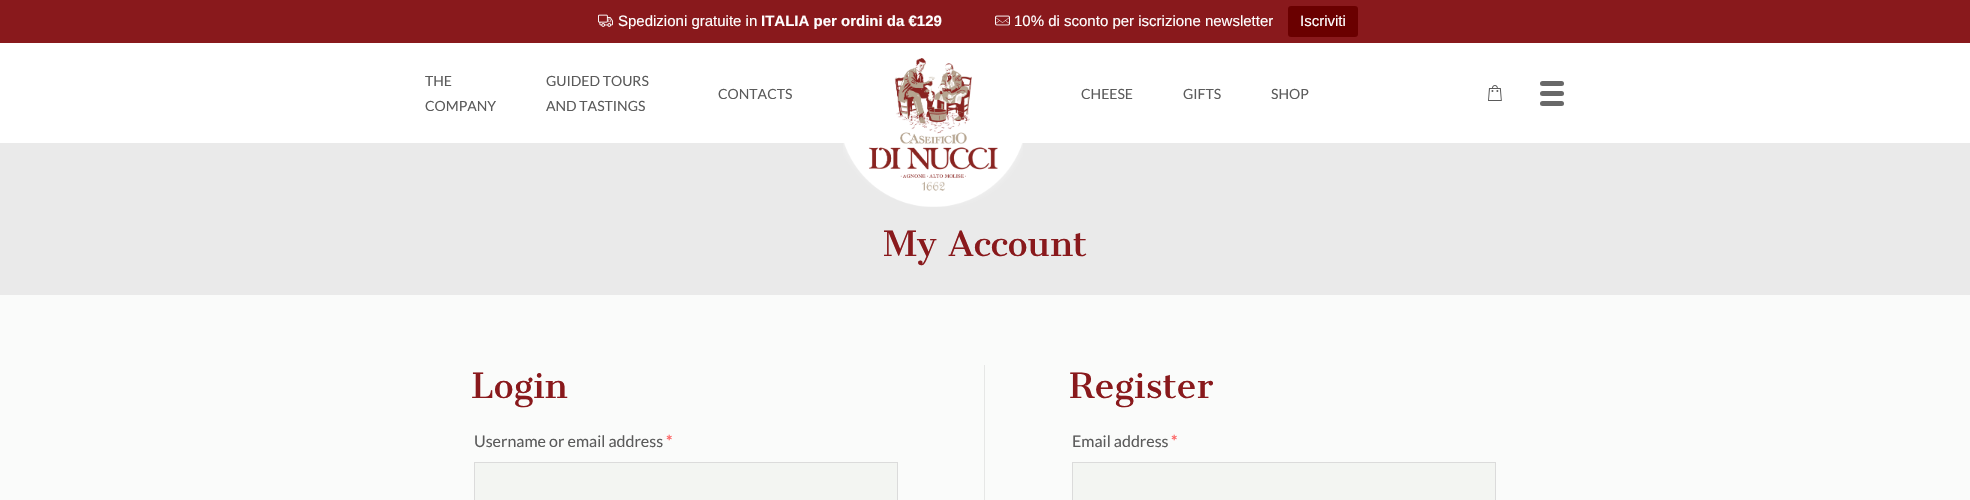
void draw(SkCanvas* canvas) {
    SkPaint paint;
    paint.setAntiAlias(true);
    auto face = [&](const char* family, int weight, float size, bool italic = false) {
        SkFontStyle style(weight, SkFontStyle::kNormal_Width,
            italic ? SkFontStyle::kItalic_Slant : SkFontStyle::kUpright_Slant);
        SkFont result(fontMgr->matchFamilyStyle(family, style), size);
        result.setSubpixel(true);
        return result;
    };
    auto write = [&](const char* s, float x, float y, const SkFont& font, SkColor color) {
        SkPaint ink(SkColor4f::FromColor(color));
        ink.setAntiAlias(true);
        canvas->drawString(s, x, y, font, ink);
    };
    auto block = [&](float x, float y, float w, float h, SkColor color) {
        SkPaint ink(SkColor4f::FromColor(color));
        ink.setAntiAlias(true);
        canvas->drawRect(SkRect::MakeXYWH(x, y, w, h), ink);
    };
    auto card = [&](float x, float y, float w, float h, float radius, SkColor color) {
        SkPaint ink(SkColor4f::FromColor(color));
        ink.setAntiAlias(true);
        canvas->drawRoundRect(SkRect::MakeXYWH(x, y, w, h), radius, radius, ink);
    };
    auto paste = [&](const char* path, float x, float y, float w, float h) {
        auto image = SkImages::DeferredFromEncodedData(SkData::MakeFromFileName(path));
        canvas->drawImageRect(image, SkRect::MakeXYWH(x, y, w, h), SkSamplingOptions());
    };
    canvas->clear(SkColorSetRGB(250, 251, 250));
    block(0, 0, 1970, 43, SkColorSetRGB(137, 25, 28));
    paste("pic1.png", 598, 14, 15, 13);
    auto kFont1 = face("Liberation Sans", 400, 15);
    write("Spedizioni gratuite in", 618, 26, kFont1, SK_ColorWHITE);
    auto kFont2 = face("Liberation Sans", 700, 15);
    write("ITALIA per ordini da €129", 761, 26, kFont2, SK_ColorWHITE);
    paste("pic2.png", 995, 15, 15, 11);
    write("10% di sconto per iscrizione newsletter", 1014, 26, kFont1, SK_ColorWHITE);
    card(1288, 6, 70, 31, 3, SkColorSetRGB(106, 0, 0));
    write("Iscriviti", 1300, 26, kFont1, SK_ColorWHITE);
    block(0, 43, 1970, 100, SK_ColorWHITE);
    block(0, 143, 1970, 152, SkColorSetRGB(234, 234, 234));
    paste("pic3.png", 843, 58, 180, 149);
    auto kFont3 = face("Lato", 400, 14);
    write("THE", 425, 86, kFont3, SkColorSetRGB(91, 91, 91));
    write("COMPANY", 425, 111, kFont3, SkColorSetRGB(91, 91, 91));
    write("GUIDED TOURS", 546, 86, kFont3, SkColorSetRGB(91, 91, 91));
    write("AND TASTINGS", 546, 111, kFont3, SkColorSetRGB(91, 91, 91));
    write("CONTACTS", 718, 99, kFont3, SkColorSetRGB(91, 91, 91));
    write("CHEESE", 1081, 99, kFont3, SkColorSetRGB(91, 91, 91));
    write("GIFTS", 1183, 99, kFont3, SkColorSetRGB(91, 91, 91));
    write("SHOP", 1271, 99, kFont3, SkColorSetRGB(91, 91, 91));
    paste("pic4.png", 1488, 85, 14, 16);
    card(1540, 91, 24, 5, 2.5f, SkColorSetRGB(104, 104, 104));
    card(1540, 81, 24, 5, 2.5f, SkColorSetRGB(104, 104, 104));
    card(1540, 101, 24, 5, 2.5f, SkColorSetRGB(104, 104, 104));
    auto kFont4 = face("Cantata One", 400, 34);
    write("My Account", 883, 256, kFont4, SkColorSetRGB(137, 25, 28));
    write("Login", 471, 398, kFont4, SkColorSetRGB(137, 25, 28));
    block(984, 365, 1, 135, SkColorSetRGB(230, 231, 230));
    auto kFont5 = face("Lato", 400, 16);
    write("Username or email address", 474, 447, kFont5, SkColorSetRGB(91, 91, 91));
    auto kFont6 = face("Lato", 700, 16);
    write("*", 666, 447, kFont6, SkColorSetRGB(253, 100, 100));
    paint.setColor(SkColorSetRGB(243, 245, 242));
    canvas->drawRect(SkRect::MakeXYWH(474.5f, 462.5f, 423, 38), paint);
    paint.setStyle(SkPaint::kStroke_Style);
    paint.setStrokeWidth(1);
    paint.setColor(SkColorSetRGB(219, 219, 219));
    canvas->drawRect(SkRect::MakeXYWH(474.5f, 462.5f, 423, 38), paint);
    write("Register", 1069, 398, kFont4, SkColorSetRGB(137, 25, 28));
    write("Email address", 1072, 447, kFont5, SkColorSetRGB(91, 91, 91));
    write("*", 1171, 447, kFont6, SkColorSetRGB(253, 100, 100));
    paint.setStyle(SkPaint::kFill_Style);
    paint.setColor(SkColorSetRGB(243, 245, 242));
    canvas->drawRect(SkRect::MakeXYWH(1072.5f, 462.5f, 423, 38), paint);
    paint.setStyle(SkPaint::kStroke_Style);
    paint.setColor(SkColorSetRGB(219, 219, 219));
    canvas->drawRect(SkRect::MakeXYWH(1072.5f, 462.5f, 423, 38), paint);
}
